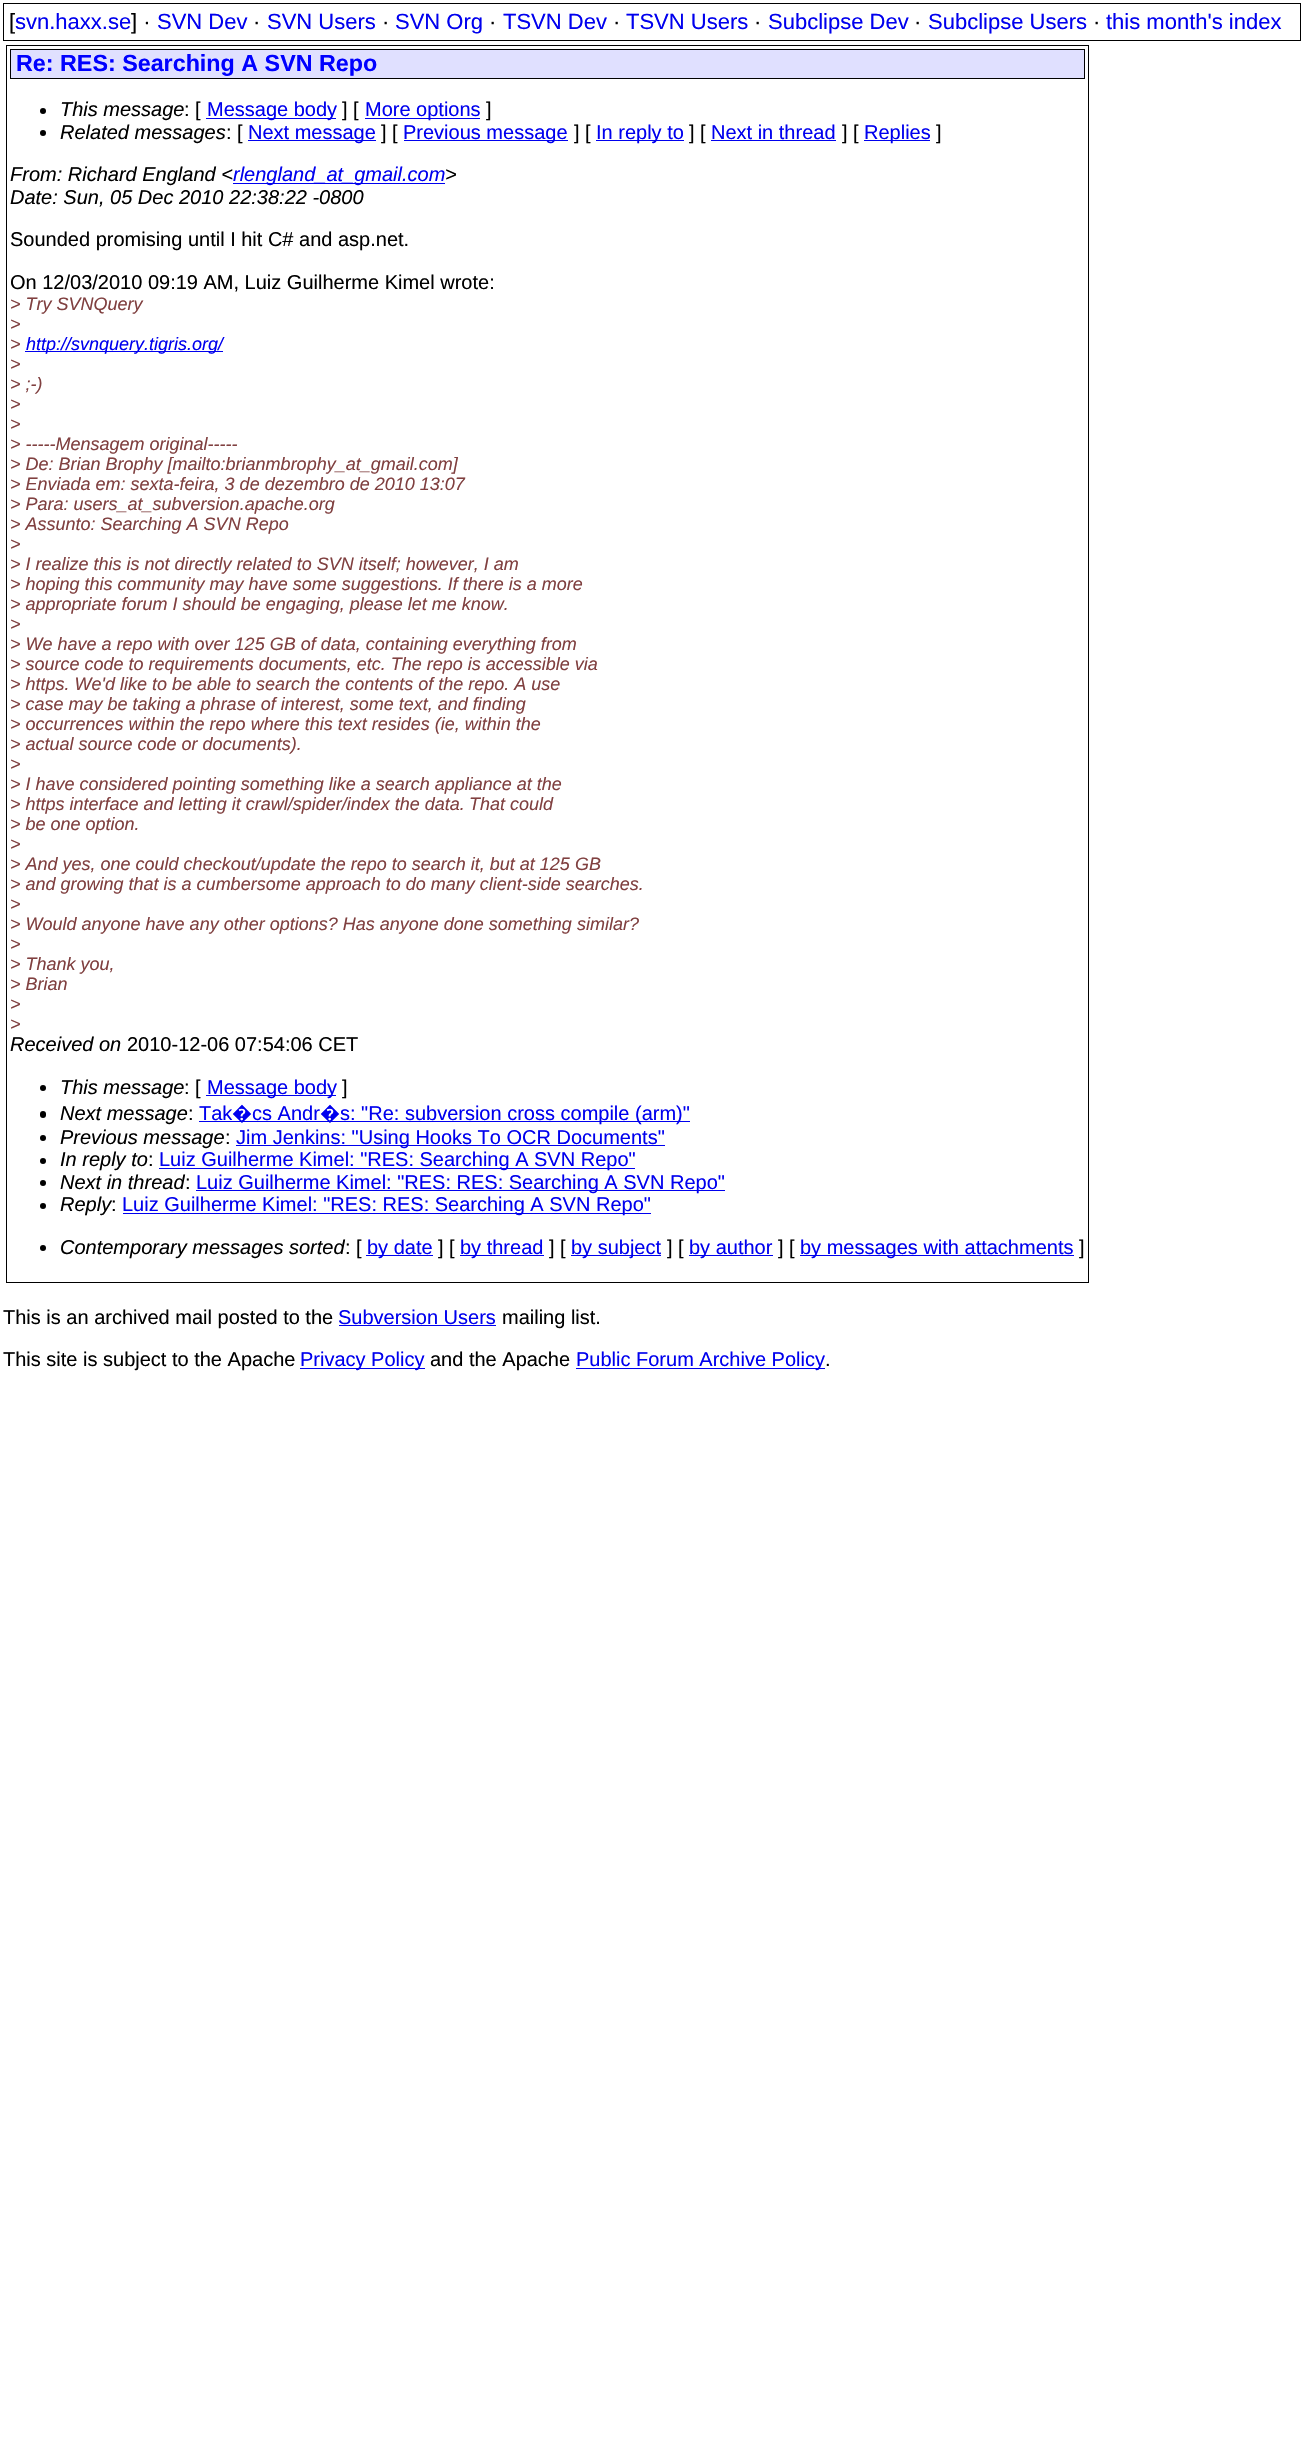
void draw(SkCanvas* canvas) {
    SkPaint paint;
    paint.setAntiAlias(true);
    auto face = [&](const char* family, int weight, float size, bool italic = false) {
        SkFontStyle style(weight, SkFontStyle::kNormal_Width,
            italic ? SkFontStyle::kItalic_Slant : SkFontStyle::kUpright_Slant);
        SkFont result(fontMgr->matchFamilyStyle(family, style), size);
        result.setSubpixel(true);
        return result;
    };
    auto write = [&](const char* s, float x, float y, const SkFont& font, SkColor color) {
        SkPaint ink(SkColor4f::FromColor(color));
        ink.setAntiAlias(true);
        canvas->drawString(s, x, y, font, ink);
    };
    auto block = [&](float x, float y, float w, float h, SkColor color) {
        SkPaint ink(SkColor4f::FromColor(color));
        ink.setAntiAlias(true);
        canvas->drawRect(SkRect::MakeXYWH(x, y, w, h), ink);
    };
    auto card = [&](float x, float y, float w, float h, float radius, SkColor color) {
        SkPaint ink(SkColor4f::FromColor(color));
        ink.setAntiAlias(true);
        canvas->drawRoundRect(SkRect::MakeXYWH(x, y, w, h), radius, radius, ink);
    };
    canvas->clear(SK_ColorWHITE);
    paint.setStyle(SkPaint::kStroke_Style);
    paint.setStrokeWidth(1);
    paint.setColor(SK_ColorBLACK);
    canvas->drawRect(SkRect::MakeXYWH(3.5f, 3.5f, 1297, 37), paint);
    auto kFont1 = face("Liberation Sans", 400, 22);
    write("[", 9, 29, kFont1, SK_ColorBLACK);
    write("svn.haxx.se", 15, 29, kFont1, SkColorSetRGB(0, 0, 238));
    write("] ·", 131, 29, kFont1, SK_ColorBLACK);
    write("SVN Dev", 157, 29, kFont1, SkColorSetRGB(0, 0, 238));
    write("·", 253, 29, kFont1, SK_ColorBLACK);
    write("SVN Users", 267, 29, kFont1, SkColorSetRGB(0, 0, 238));
    write("·", 382, 29, kFont1, SK_ColorBLACK);
    write("SVN Org", 395, 29, kFont1, SkColorSetRGB(0, 0, 238));
    write("·", 489, 29, kFont1, SK_ColorBLACK);
    write("TSVN Dev", 503, 29, kFont1, SkColorSetRGB(0, 0, 238));
    write("·", 613, 29, kFont1, SK_ColorBLACK);
    write("TSVN Users", 626, 29, kFont1, SkColorSetRGB(0, 0, 238));
    write("·", 754, 29, kFont1, SK_ColorBLACK);
    write("Subclipse Dev", 768, 29, kFont1, SkColorSetRGB(0, 0, 238));
    write("·", 914, 29, kFont1, SK_ColorBLACK);
    write("Subclipse Users", 928, 29, kFont1, SkColorSetRGB(0, 0, 238));
    write("·", 1093, 29, kFont1, SK_ColorBLACK);
    write("this month's index", 1106, 29, kFont1, SkColorSetRGB(0, 0, 238));
    canvas->drawRect(SkRect::MakeXYWH(6.5f, 45.5f, 1082, 1237), paint);
    paint.setStyle(SkPaint::kFill_Style);
    paint.setColor(SkColorSetRGB(224, 224, 255));
    canvas->drawRect(SkRect::MakeXYWH(10.5f, 49.5f, 1074, 29), paint);
    paint.setStyle(SkPaint::kStroke_Style);
    paint.setColor(SK_ColorBLACK);
    canvas->drawRect(SkRect::MakeXYWH(10.5f, 49.5f, 1074, 29), paint);
    auto kFont2 = face("Liberation Sans", 700, 23.3f);
    write("Re: RES: Searching A SVN Repo", 16, 71, kFont2, SkColorSetRGB(0, 0, 255));
    paint.setStyle(SkPaint::kFill_Style);
    canvas->drawCircle(43, 111, 3, paint);
    auto kFont3 = face("Liberation Sans", 400, 20, true);
    write("This message", 60, 116, kFont3, SK_ColorBLACK);
    auto kFont4 = face("Liberation Sans", 400, 20);
    write(": [", 184, 116, kFont4, SK_ColorBLACK);
    block(206, 118, 130, 1, SkColorSetRGB(0, 0, 238));
    write("Message body", 207, 116, kFont4, SkColorSetRGB(0, 0, 238));
    write("] [", 342, 116, kFont4, SK_ColorBLACK);
    block(365, 118, 115, 1, SkColorSetRGB(0, 0, 238));
    write("More options", 365, 116, kFont4, SkColorSetRGB(0, 0, 238));
    write("]", 486, 116, kFont4, SK_ColorBLACK);
    canvas->drawCircle(43, 133, 3, paint);
    write("Related messages", 60, 139, kFont3, SK_ColorBLACK);
    write(": [", 226, 139, kFont4, SK_ColorBLACK);
    block(248, 140, 128, 1, SkColorSetRGB(0, 0, 238));
    write("Next message", 248, 139, kFont4, SkColorSetRGB(0, 0, 238));
    write("] [", 381, 139, kFont4, SK_ColorBLACK);
    block(404, 140, 164, 1, SkColorSetRGB(0, 0, 238));
    write("Previous message", 403, 139, kFont4, SkColorSetRGB(0, 0, 238));
    write("] [", 574, 139, kFont4, SK_ColorBLACK);
    block(596, 140, 88, 1, SkColorSetRGB(0, 0, 238));
    write("In reply to", 596, 139, kFont4, SkColorSetRGB(0, 0, 238));
    write("] [", 689, 139, kFont4, SK_ColorBLACK);
    write("Next in thread", 711, 139, kFont4, SkColorSetRGB(0, 0, 238));
    block(711, 140, 125, 1, SkColorSetRGB(0, 0, 238));
    write("] [", 842, 139, kFont4, SK_ColorBLACK);
    block(864, 140, 66, 1, SkColorSetRGB(0, 0, 238));
    write("Replies", 864, 139, kFont4, SkColorSetRGB(0, 0, 238));
    write("]", 936, 139, kFont4, SK_ColorBLACK);
    write("From: Richard England <", 10, 181, kFont3, SK_ColorBLACK);
    block(233, 183, 212, 1, SkColorSetRGB(0, 0, 238));
    write("rlengland_at_gmail.com", 233, 181, kFont3, SkColorSetRGB(0, 0, 238));
    write(">", 445, 181, kFont3, SK_ColorBLACK);
    write("Date: Sun, 05 Dec 2010 22:38:22 -0800", 10, 204, kFont3, SK_ColorBLACK);
    write("Sounded promising until I hit C# and asp.net.", 10, 246, kFont4, SK_ColorBLACK);
    write("On 12/03/2010 09:19 AM, Luiz Guilherme Kimel wrote:", 10, 289, kFont4, SK_ColorBLACK);
    auto kFont5 = face("Liberation Sans", 400, 18, true);
    write("> Try SVNQuery", 10, 310, kFont5, SkColorSetRGB(128, 64, 64));
    write(">", 10, 330, kFont5, SkColorSetRGB(128, 64, 64));
    write(">", 10, 350, kFont5, SkColorSetRGB(128, 64, 64));
    block(25, 351, 198, 1, SkColorSetRGB(0, 0, 238));
    write("http://svnquery.tigris.org/", 26, 350, kFont5, SkColorSetRGB(0, 0, 238));
    write(">", 10, 370, kFont5, SkColorSetRGB(128, 64, 64));
    write("> ;-)", 10, 390, kFont5, SkColorSetRGB(128, 64, 64));
    write(">", 10, 410, kFont5, SkColorSetRGB(128, 64, 64));
    write(">", 10, 430, kFont5, SkColorSetRGB(128, 64, 64));
    write("> -----Mensagem original-----", 10, 450, kFont5, SkColorSetRGB(128, 64, 64));
    write("> De: Brian Brophy [mailto:brianmbrophy_at_gmail.com]", 10, 470, kFont5, SkColorSetRGB(128, 64, 64));
    write("> Enviada em: sexta-feira, 3 de dezembro de 2010 13:07", 10, 490, kFont5, SkColorSetRGB(128, 64, 64));
    write("> Para: users_at_subversion.apache.org", 10, 510, kFont5, SkColorSetRGB(128, 64, 64));
    write("> Assunto: Searching A SVN Repo", 10, 530, kFont5, SkColorSetRGB(128, 64, 64));
    write(">", 10, 550, kFont5, SkColorSetRGB(128, 64, 64));
    write("> I realize this is not directly related to SVN itself; however, I am", 10, 570, kFont5, SkColorSetRGB(128, 64, 64));
    write("> hoping this community may have some suggestions. If there is a more", 10, 590, kFont5, SkColorSetRGB(128, 64, 64));
    write("> appropriate forum I should be engaging, please let me know.", 10, 610, kFont5, SkColorSetRGB(128, 64, 64));
    write(">", 10, 630, kFont5, SkColorSetRGB(128, 64, 64));
    write("> We have a repo with over 125 GB of data, containing everything from", 10, 650, kFont5, SkColorSetRGB(128, 64, 64));
    write("> source code to requirements documents, etc. The repo is accessible via", 10, 670, kFont5, SkColorSetRGB(128, 64, 64));
    write("> https. We'd like to be able to search the contents of the repo. A use", 10, 690, kFont5, SkColorSetRGB(128, 64, 64));
    write("> case may be taking a phrase of interest, some text, and finding", 10, 710, kFont5, SkColorSetRGB(128, 64, 64));
    write("> occurrences within the repo where this text resides (ie, within the", 10, 730, kFont5, SkColorSetRGB(128, 64, 64));
    write("> actual source code or documents).", 10, 750, kFont5, SkColorSetRGB(128, 64, 64));
    write(">", 10, 770, kFont5, SkColorSetRGB(128, 64, 64));
    write("> I have considered pointing something like a search appliance at the", 10, 790, kFont5, SkColorSetRGB(128, 64, 64));
    write("> https interface and letting it crawl/spider/index the data.", 10, 810, kFont5, SkColorSetRGB(128, 64, 64));
    write("That could", 469, 810, kFont5, SkColorSetRGB(128, 64, 64));
    write("> be one option.", 10, 830, kFont5, SkColorSetRGB(128, 64, 64));
    write(">", 10, 850, kFont5, SkColorSetRGB(128, 64, 64));
    write("> And yes, one could checkout/update the repo to search it, but at 125 GB", 10, 870, kFont5, SkColorSetRGB(128, 64, 64));
    write("> and growing that is a cumbersome approach to do many client-side searches.", 10, 890, kFont5, SkColorSetRGB(128, 64, 64));
    write(">", 10, 910, kFont5, SkColorSetRGB(128, 64, 64));
    write("> Would anyone have any other options? Has anyone done something similar?", 10, 930, kFont5, SkColorSetRGB(128, 64, 64));
    write(">", 10, 950, kFont5, SkColorSetRGB(128, 64, 64));
    write("> Thank you,", 10, 970, kFont5, SkColorSetRGB(128, 64, 64));
    write("> Brian", 10, 990, kFont5, SkColorSetRGB(128, 64, 64));
    write(">", 10, 1010, kFont5, SkColorSetRGB(128, 64, 64));
    write(">", 10, 1030, kFont5, SkColorSetRGB(128, 64, 64));
    write("Received on", 10, 1051, kFont3, SK_ColorBLACK);
    write("2010-12-06 07:54:06 CET", 127, 1051, kFont4, SK_ColorBLACK);
    canvas->drawCircle(43, 1088, 3, paint);
    write("This message", 60, 1094, kFont3, SK_ColorBLACK);
    write(": [", 184, 1094, kFont4, SK_ColorBLACK);
    block(206, 1095, 130, 1, SkColorSetRGB(0, 0, 238));
    write("Message body", 207, 1094, kFont4, SkColorSetRGB(0, 0, 238));
    write("]", 342, 1094, kFont4, SK_ColorBLACK);
    card(40, 1111, 6, 7, 3, SK_ColorBLACK);
    write("Next message", 60, 1120, kFont3, SK_ColorBLACK);
    write(":", 188, 1120, kFont4, SK_ColorBLACK);
    write("Tak", 199, 1120, kFont4, SkColorSetRGB(0, 0, 238));
    block(199, 1121, 491, 1, SkColorSetRGB(0, 0, 238));
    auto kFont6 = face("Noto Sans", 400, 20);
    write("�", 232, 1120, kFont6, SkColorSetRGB(0, 0, 238));
    write("cs Andr", 252, 1120, kFont4, SkColorSetRGB(0, 0, 238));
    write("�", 320, 1120, kFont6, SkColorSetRGB(0, 0, 238));
    write("s: \"Re: subversion cross compile (arm)\"", 340, 1120, kFont4, SkColorSetRGB(0, 0, 238));
    canvas->drawCircle(43, 1138, 3, paint);
    write("Previous message", 60, 1144, kFont3, SK_ColorBLACK);
    write(":", 225, 1144, kFont4, SK_ColorBLACK);
    block(236, 1145, 429, 1, SkColorSetRGB(0, 0, 238));
    write("Jim Jenkins: \"Using Hooks To OCR Documents\"", 236, 1144, kFont4, SkColorSetRGB(0, 0, 238));
    canvas->drawCircle(43, 1161, 3, paint);
    write("In reply to", 60, 1166, kFont3, SK_ColorBLACK);
    write(":", 148, 1166, kFont4, SK_ColorBLACK);
    block(159, 1168, 476, 1, SkColorSetRGB(0, 0, 238));
    write("Luiz Guilherme Kimel: \"RES: Searching A SVN Repo\"", 159, 1166, kFont4, SkColorSetRGB(0, 0, 238));
    canvas->drawCircle(43, 1183, 3, paint);
    write("Next in thread", 60, 1189, kFont3, SK_ColorBLACK);
    write(":", 185, 1189, kFont4, SK_ColorBLACK);
    block(196, 1190, 529, 1, SkColorSetRGB(0, 0, 238));
    write("Luiz Guilherme Kimel: \"RES: RES: Searching A SVN Repo\"", 196, 1189, kFont4, SkColorSetRGB(0, 0, 238));
    canvas->drawCircle(43, 1206, 3, paint);
    write("Reply", 60, 1211, kFont3, SK_ColorBLACK);
    write(":", 111, 1211, kFont4, SK_ColorBLACK);
    block(123, 1213, 528, 1, SkColorSetRGB(0, 0, 238));
    write("Luiz Guilherme Kimel: \"RES: RES: Searching A SVN Repo\"", 122, 1211, kFont4, SkColorSetRGB(0, 0, 238));
    canvas->drawCircle(43, 1248, 3, paint);
    write("Contemporary messages sorted", 60, 1254, kFont3, SK_ColorBLACK);
    write(": [", 345, 1254, kFont4, SK_ColorBLACK);
    block(366, 1255, 67, 1, SkColorSetRGB(0, 0, 238));
    write("by date", 367, 1254, kFont4, SkColorSetRGB(0, 0, 238));
    write("] [", 438, 1254, kFont4, SK_ColorBLACK);
    block(460, 1255, 84, 1, SkColorSetRGB(0, 0, 238));
    write("by thread", 460, 1254, kFont4, SkColorSetRGB(0, 0, 238));
    write("] [", 549, 1254, kFont4, SK_ColorBLACK);
    block(571, 1255, 90, 1, SkColorSetRGB(0, 0, 238));
    write("by subject", 571, 1254, kFont4, SkColorSetRGB(0, 0, 238));
    write("] [", 667, 1254, kFont4, SK_ColorBLACK);
    block(689, 1255, 84, 1, SkColorSetRGB(0, 0, 238));
    write("by author", 689, 1254, kFont4, SkColorSetRGB(0, 0, 238));
    write("] [", 778, 1254, kFont4, SK_ColorBLACK);
    block(800, 1255, 274, 1, SkColorSetRGB(0, 0, 238));
    write("by messages with attachments", 800, 1254, kFont4, SkColorSetRGB(0, 0, 238));
    write("]", 1079, 1254, kFont4, SK_ColorBLACK);
    write("This is an archived mail posted to the", 3, 1324, kFont4, SK_ColorBLACK);
    write("Subversion Users", 338, 1324, kFont4, SkColorSetRGB(0, 0, 238));
    block(339, 1325, 157, 1, SkColorSetRGB(0, 0, 238));
    write("mailing list.", 502, 1324, kFont4, SK_ColorBLACK);
    write("This site is subject to the Apache", 3, 1366, kFont4, SK_ColorBLACK);
    block(300, 1368, 125, 1, SkColorSetRGB(0, 0, 238));
    write("Privacy Policy", 300, 1366, kFont4, SkColorSetRGB(0, 0, 238));
    write("and the Apache", 430, 1366, kFont4, SK_ColorBLACK);
    block(576, 1368, 249, 1, SkColorSetRGB(0, 0, 238));
    write("Public Forum Archive Policy", 576, 1366, kFont4, SkColorSetRGB(0, 0, 238));
    write(".", 825, 1366, kFont4, SK_ColorBLACK);
}
